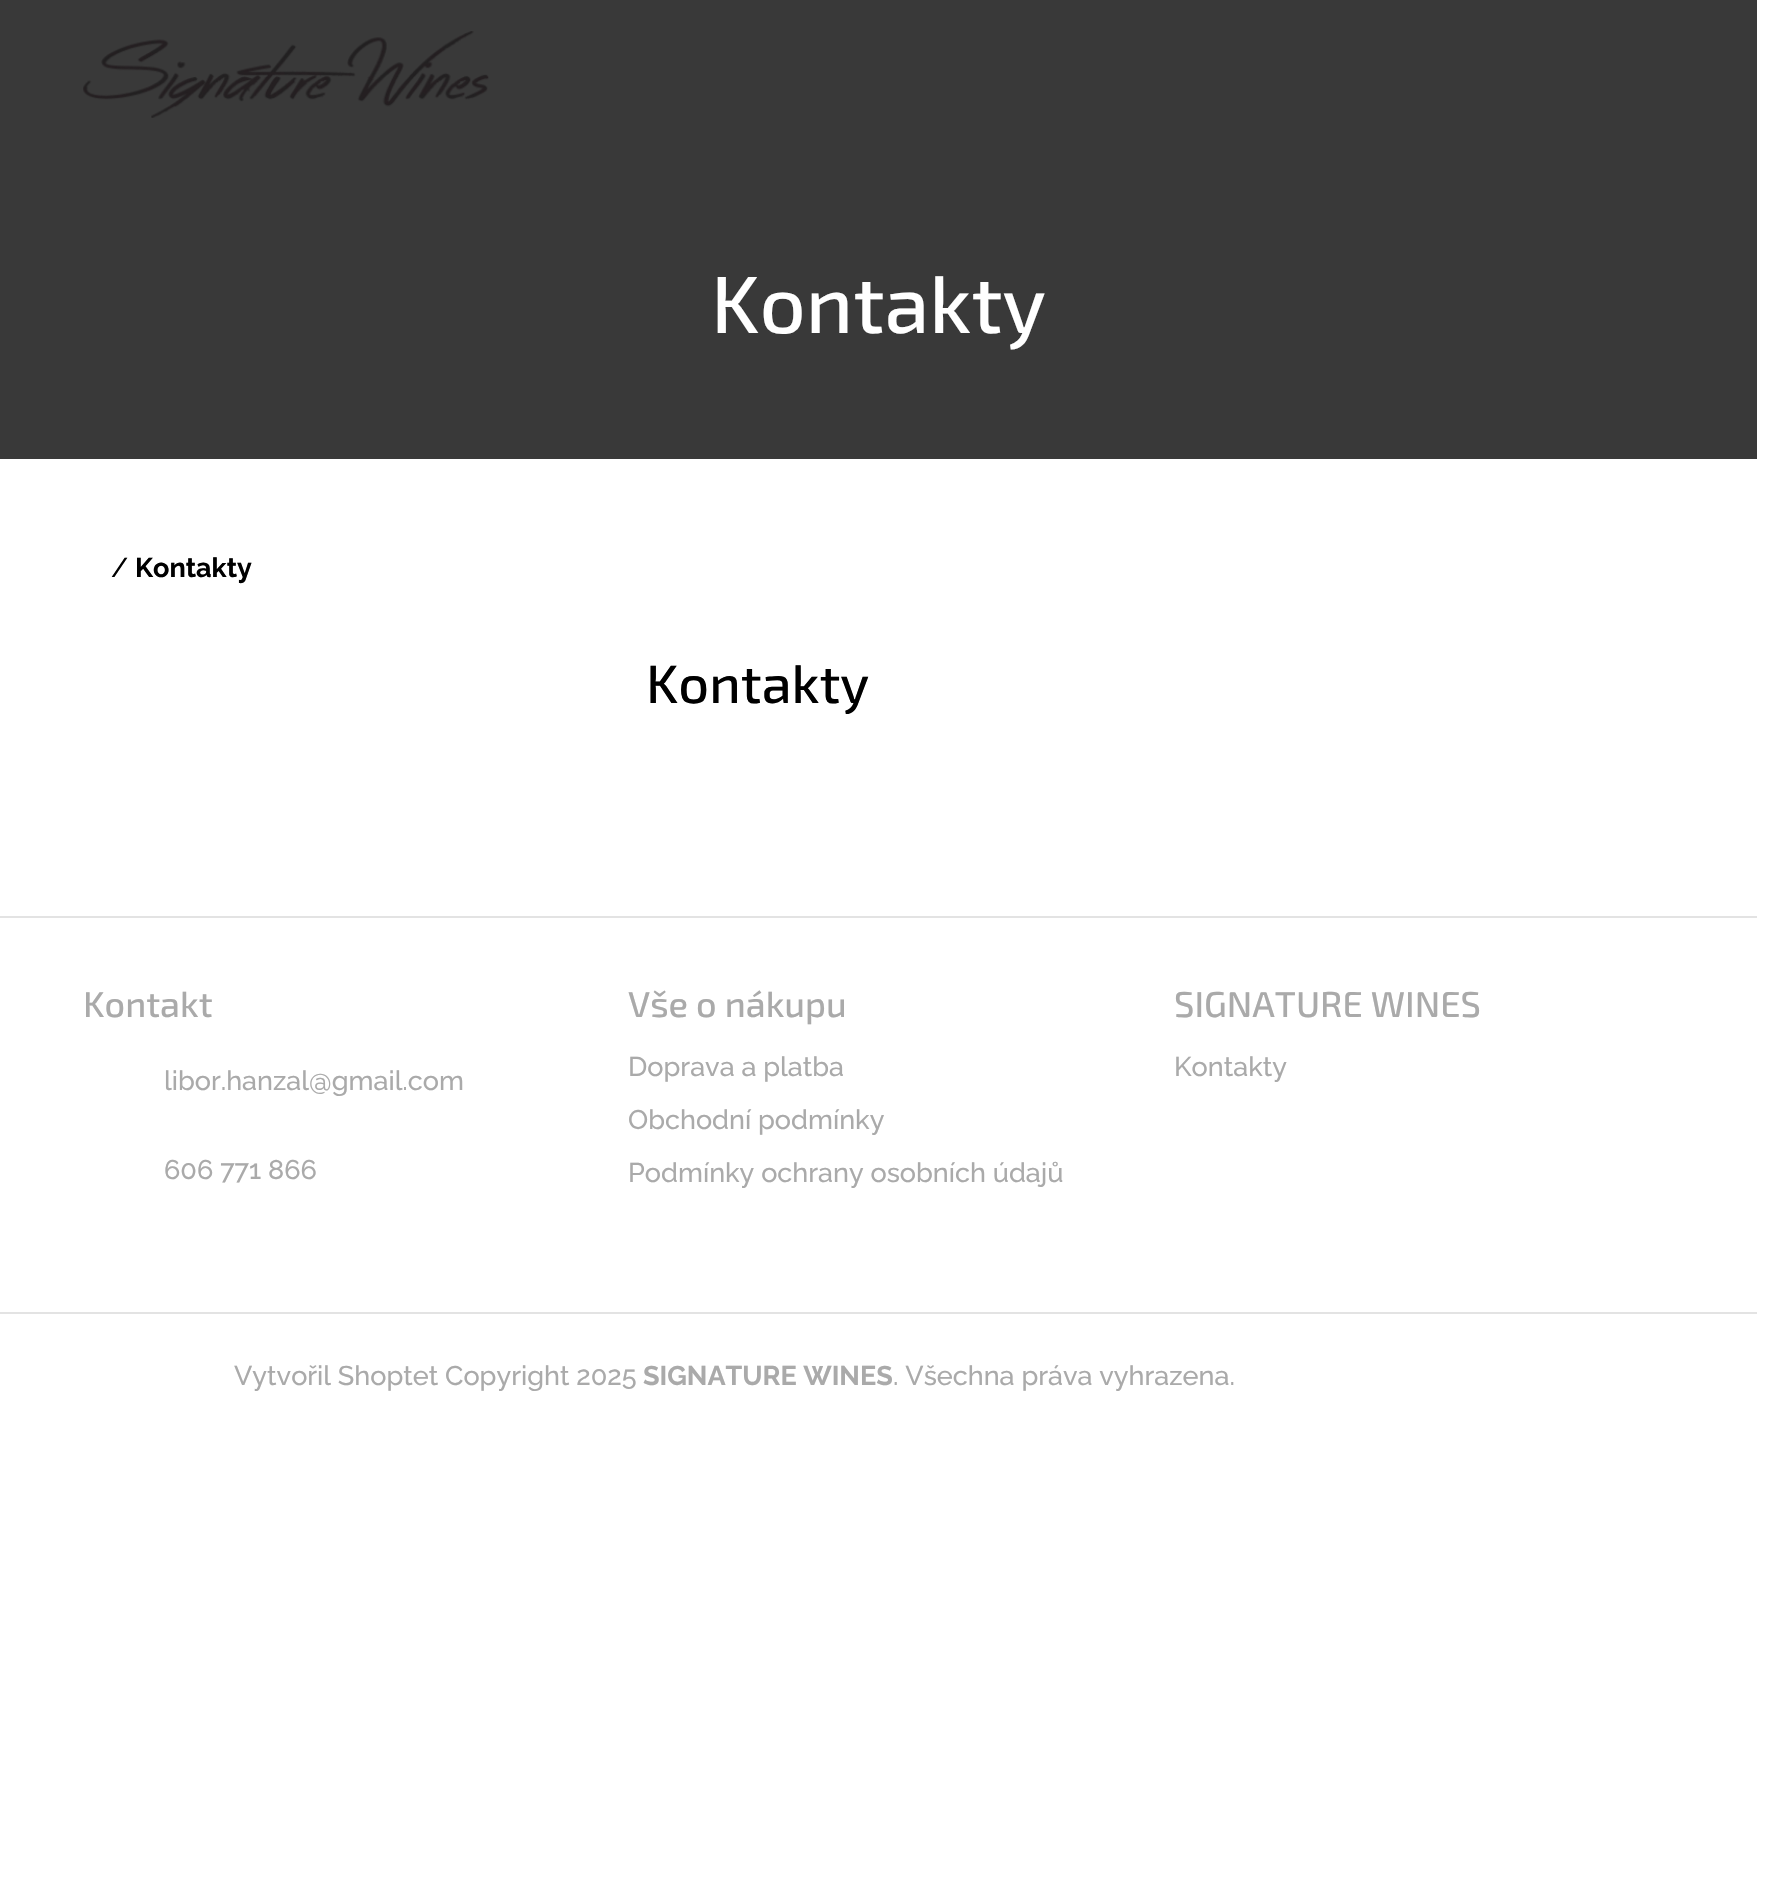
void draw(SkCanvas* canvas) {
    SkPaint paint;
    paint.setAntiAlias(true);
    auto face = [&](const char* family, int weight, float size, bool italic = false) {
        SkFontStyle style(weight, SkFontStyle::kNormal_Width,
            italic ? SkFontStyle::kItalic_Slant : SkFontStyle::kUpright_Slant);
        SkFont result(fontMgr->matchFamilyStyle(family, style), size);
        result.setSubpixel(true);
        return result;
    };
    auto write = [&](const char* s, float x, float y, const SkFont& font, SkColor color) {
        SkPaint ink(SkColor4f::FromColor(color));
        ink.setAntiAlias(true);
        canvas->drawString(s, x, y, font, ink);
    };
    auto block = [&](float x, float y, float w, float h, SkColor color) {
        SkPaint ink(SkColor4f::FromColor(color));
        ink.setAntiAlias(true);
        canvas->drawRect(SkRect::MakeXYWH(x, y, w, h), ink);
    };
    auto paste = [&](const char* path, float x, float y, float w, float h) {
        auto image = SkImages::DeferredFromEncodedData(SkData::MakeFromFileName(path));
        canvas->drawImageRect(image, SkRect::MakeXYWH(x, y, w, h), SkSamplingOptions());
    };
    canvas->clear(SK_ColorWHITE);
    block(0, 0, 1757, 459, SkColorSetRGB(57, 57, 57));
    paste("pic1.png", 83, 31, 406, 87);
    auto kFont1 = face("Exo 2", 500, 81);
    write("Kontakty", 711, 333, kFont1, SK_ColorWHITE);
    auto kFont2 = face("Raleway", 500, 27);
    write("/", 111, 577, kFont2, SK_ColorBLACK);
    auto kFont3 = face("Raleway", 700, 27);
    write("Kontakty", 135, 577, kFont3, SK_ColorBLACK);
    auto kFont4 = face("Exo 2", 500, 54);
    write("Kontakty", 646, 703, kFont4, SK_ColorBLACK);
    block(0, 916, 1757, 2, SkColorSetRGB(227, 227, 227));
    auto kFont5 = face("Exo 2", 500, 36);
    write("Kontakt", 83, 1017, kFont5, SkColorSetRGB(170, 170, 170));
    write("libor.hanzal@gmail.com", 164, 1090, kFont2, SkColorSetRGB(170, 170, 170));
    write("606 771 866", 164, 1179, kFont2, SkColorSetRGB(170, 170, 170));
    write("Vše o nákupu", 628, 1017, kFont5, SkColorSetRGB(170, 170, 170));
    write("Doprava a platba", 628, 1076, kFont2, SkColorSetRGB(170, 170, 170));
    write("Obchodní podmínky", 628, 1129, kFont2, SkColorSetRGB(170, 170, 170));
    write("Podmínky ochrany osobních údajů", 628, 1182, kFont2, SkColorSetRGB(170, 170, 170));
    write("SIGNATURE WINES", 1174, 1017, kFont5, SkColorSetRGB(170, 170, 170));
    write("Kontakty", 1174, 1076, kFont2, SkColorSetRGB(170, 170, 170));
    block(0, 1312, 1757, 2, SkColorSetRGB(227, 227, 227));
    write("Vytvořil Shoptet Copyright 2025", 234, 1385, kFont2, SkColorSetRGB(170, 170, 170));
    write("SIGNATURE WINES", 643, 1385, kFont3, SkColorSetRGB(170, 170, 170));
    write(". Všechna práva vyhrazena.", 893, 1385, kFont2, SkColorSetRGB(170, 170, 170));
}
